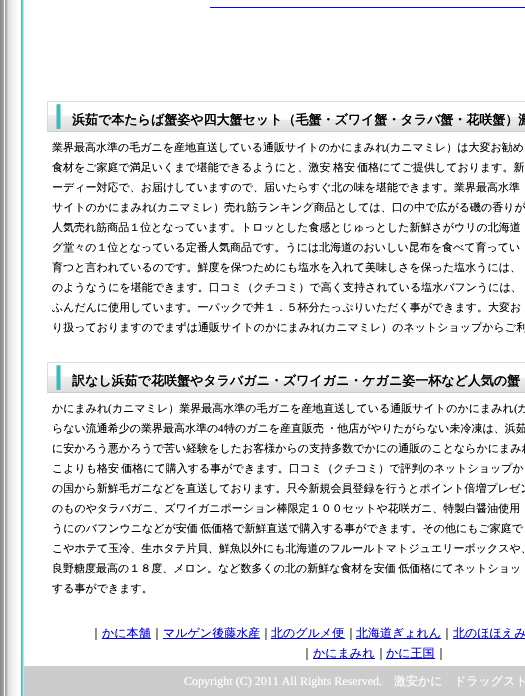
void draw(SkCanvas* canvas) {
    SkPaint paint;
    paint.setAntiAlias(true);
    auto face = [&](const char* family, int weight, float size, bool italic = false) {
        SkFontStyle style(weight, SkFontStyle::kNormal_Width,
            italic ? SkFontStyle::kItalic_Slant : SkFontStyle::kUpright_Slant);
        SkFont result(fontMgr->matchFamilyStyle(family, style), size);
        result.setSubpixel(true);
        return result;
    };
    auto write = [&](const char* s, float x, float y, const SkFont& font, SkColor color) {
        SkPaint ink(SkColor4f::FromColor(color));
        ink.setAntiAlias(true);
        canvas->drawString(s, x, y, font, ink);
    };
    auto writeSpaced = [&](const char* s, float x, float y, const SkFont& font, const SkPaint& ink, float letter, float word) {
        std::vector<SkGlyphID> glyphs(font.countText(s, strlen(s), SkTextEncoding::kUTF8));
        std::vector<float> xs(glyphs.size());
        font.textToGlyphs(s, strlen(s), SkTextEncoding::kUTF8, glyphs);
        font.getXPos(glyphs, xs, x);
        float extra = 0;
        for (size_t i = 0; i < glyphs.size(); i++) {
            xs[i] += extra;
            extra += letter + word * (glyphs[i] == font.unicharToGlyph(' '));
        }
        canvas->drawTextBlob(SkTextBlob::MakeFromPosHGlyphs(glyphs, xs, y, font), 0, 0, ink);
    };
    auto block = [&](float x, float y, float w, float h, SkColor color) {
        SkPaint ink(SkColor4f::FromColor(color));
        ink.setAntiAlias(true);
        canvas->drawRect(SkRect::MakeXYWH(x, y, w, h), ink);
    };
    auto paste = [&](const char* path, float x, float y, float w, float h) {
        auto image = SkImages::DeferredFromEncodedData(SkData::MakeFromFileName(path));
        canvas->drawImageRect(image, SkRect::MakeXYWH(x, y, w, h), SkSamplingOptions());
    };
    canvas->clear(SK_ColorWHITE);
    paste("pic1.png", 0, 0, 24, 696);
    block(210, 7, 315, 1, SkColorSetRGB(0, 0, 255));
    paste("pic2.png", 47, 101, 478, 31);
    auto kFont1 = face("WenQuanYi Zen Hei", 700, 13);
    write("浜茹で本たらば蟹姿や四大蟹セット（毛蟹・ズワイ蟹・タラバ蟹・花咲蟹）激", 72, 124, kFont1, SK_ColorBLACK);
    auto kFont2 = face("WenQuanYi Zen Hei", 500, 11);
    write("業界最高水準の毛ガニを産地直送している通販サイトのかにまみれ", 52, 151, kFont2, SK_ColorBLACK);
    auto kFont3 = face("Liberation Serif", 400, 11);
    write("(", 386, 151, kFont3, SK_ColorBLACK);
    write("カニマミレ）は大変お勧め", 390, 151, kFont2, SK_ColorBLACK);
    paint.setColor(SK_ColorBLACK);
    writeSpaced("食材をご家庭で満足いくまで堪能できるようにと、激安 格安 価格にてご提供しております。新", 52, 171, kFont2, paint, 0, -1);
    write("ーディー対応で、お届けしていますので、届いたらすぐ北の味を堪能できます。業界最高水準", 52, 191, kFont2, SK_ColorBLACK);
    write("サイトのかにまみれ", 52, 211, kFont2, SK_ColorBLACK);
    write("(", 153, 211, kFont3, SK_ColorBLACK);
    write("カニマミレ）売れ筋ランキング商品としては、口の中で広がる磯の香りが", 157, 211, kFont2, SK_ColorBLACK);
    write("人気売れ筋商品１位となっています。トロッとした食感とじゅっとした新鮮さがウリの北海道", 52, 231, kFont2, SK_ColorBLACK);
    write("グ堂々の１位となっている定番人気商品です。うには北海道のおいしい昆布を食べて育ってい", 52, 251, kFont2, SK_ColorBLACK);
    write("育つと言われているのです。鮮度を保つためにも塩水を入れて美味しさを保った塩水うには、", 52, 271, kFont2, SK_ColorBLACK);
    write("のようなうにを堪能できます。口コミ（クチコミ）で高く支持されている塩水バフンうには、", 52, 291, kFont2, SK_ColorBLACK);
    write("ふんだんに使用しています。一パックで丼１．５杯分たっぷりいただく事ができます。大変お", 52, 311, kFont2, SK_ColorBLACK);
    write("り扱っておりますのでまずは通販サイトのかにまみれ", 52, 331, kFont2, SK_ColorBLACK);
    write("(", 321, 331, kFont3, SK_ColorBLACK);
    write("カニマミレ）のネットショップからご利", 325, 331, kFont2, SK_ColorBLACK);
    paste("pic2.png", 47, 362, 478, 31);
    write("訳なし浜茹で花咲蟹やタラバガニ・ズワイガニ・ケガニ姿一杯など人気の蟹", 72, 385, kFont1, SK_ColorBLACK);
    write("かにまみれ", 52, 412, kFont2, SK_ColorBLACK);
    write("(", 108, 412, kFont3, SK_ColorBLACK);
    write("カニマミレ）業界最高水準の毛ガニを産地直送している通販サイトのかにまみれ", 112, 412, kFont2, SK_ColorBLACK);
    write("(", 514, 412, kFont3, SK_ColorBLACK);
    write("カ", 517, 412, kFont2, SK_ColorBLACK);
    write("らない流通希少の業界最高水準の", 52, 432, kFont2, SK_ColorBLACK);
    write("4", 218, 432, kFont3, SK_ColorBLACK);
    writeSpaced("特のガニを産直販売 ・他店がやりたがらない未冷凍は、浜茹", 224, 432, kFont2, paint, 0, -1);
    write("に安かろう悪かろうで苦い経験をしたお客様からの支持多数でかにの通販のことならかにまみれ", 52, 452, kFont2, SK_ColorBLACK);
    writeSpaced("こよりも格安 価格にて購入する事ができます。口コミ（クチコミ）で評判のネットショップか", 52, 472, kFont2, paint, 0, -1);
    write("の国から新鮮毛ガニなどを直送しております。只今新規会員登録を行うとポイント倍増プレゼン", 52, 492, kFont2, SK_ColorBLACK);
    write("のものやタラバガニ、ズワイガニポーション棒限定１００セットや花咲ガニ、特製白醤油使用", 52, 512, kFont2, SK_ColorBLACK);
    writeSpaced("うにのバフンウニなどが安価 低価格で新鮮直送で購入する事ができます。その他にもご家庭で", 52, 532, kFont2, paint, 0, -1);
    write("こやホテて玉冷、生ホタテ片貝、鮮魚以外にも北海道のフルールトマトジュエリーボックスや、", 52, 552, kFont2, SK_ColorBLACK);
    writeSpaced("良野糖度最高の１８度、メロン。など数多くの北の新鮮な食材を安価 低価格にてネットショッ", 52, 572, kFont2, paint, 0, -1);
    write("する事ができます。", 52, 592, kFont2, SK_ColorBLACK);
    auto kFont4 = face("WenQuanYi Zen Hei", 500, 12);
    write("｜", 90, 637, kFont4, SK_ColorBLACK);
    block(102, 638, 49, 1, SkColorSetRGB(0, 0, 238));
    write("かに本舗", 102, 637, kFont4, SkColorSetRGB(0, 0, 238));
    write("｜", 151, 637, kFont4, SK_ColorBLACK);
    block(163, 638, 97, 1, SkColorSetRGB(0, 0, 238));
    write("マルゲン後藤水産", 163, 637, kFont4, SkColorSetRGB(0, 0, 238));
    write("｜", 260, 637, kFont4, SK_ColorBLACK);
    block(271, 638, 74, 1, SkColorSetRGB(0, 0, 238));
    write("北のグルメ便", 271, 637, kFont4, SkColorSetRGB(0, 0, 238));
    write("｜", 345, 637, kFont4, SK_ColorBLACK);
    block(356, 638, 85, 1, SkColorSetRGB(0, 0, 238));
    write("北海道ぎょれん", 356, 637, kFont4, SkColorSetRGB(0, 0, 238));
    write("｜", 441, 637, kFont4, SK_ColorBLACK);
    block(453, 638, 72, 1, SkColorSetRGB(0, 0, 238));
    write("北のほほえみ", 453, 637, kFont4, SkColorSetRGB(0, 0, 238));
    write("｜", 301, 657, kFont4, SK_ColorBLACK);
    block(313, 658, 62, 1, SkColorSetRGB(0, 0, 238));
    write("かにまみれ", 313, 657, kFont4, SkColorSetRGB(0, 0, 238));
    write("｜", 375, 657, kFont4, SK_ColorBLACK);
    block(386, 658, 49, 1, SkColorSetRGB(0, 0, 238));
    write("かに王国", 386, 657, kFont4, SkColorSetRGB(0, 0, 238));
    write("｜", 435, 657, kFont4, SK_ColorBLACK);
    block(24, 666, 501, 30, SkColorSetRGB(204, 204, 204));
    auto kFont5 = face("Liberation Serif", 400, 12);
    write("Copyright (C) 2011 All Rights Reserved.", 184, 685, kFont5, SK_ColorWHITE);
    write("激安かに", 394, 685, kFont4, SK_ColorWHITE);
    write("ドラッグスト", 454, 685, kFont4, SK_ColorWHITE);
}
